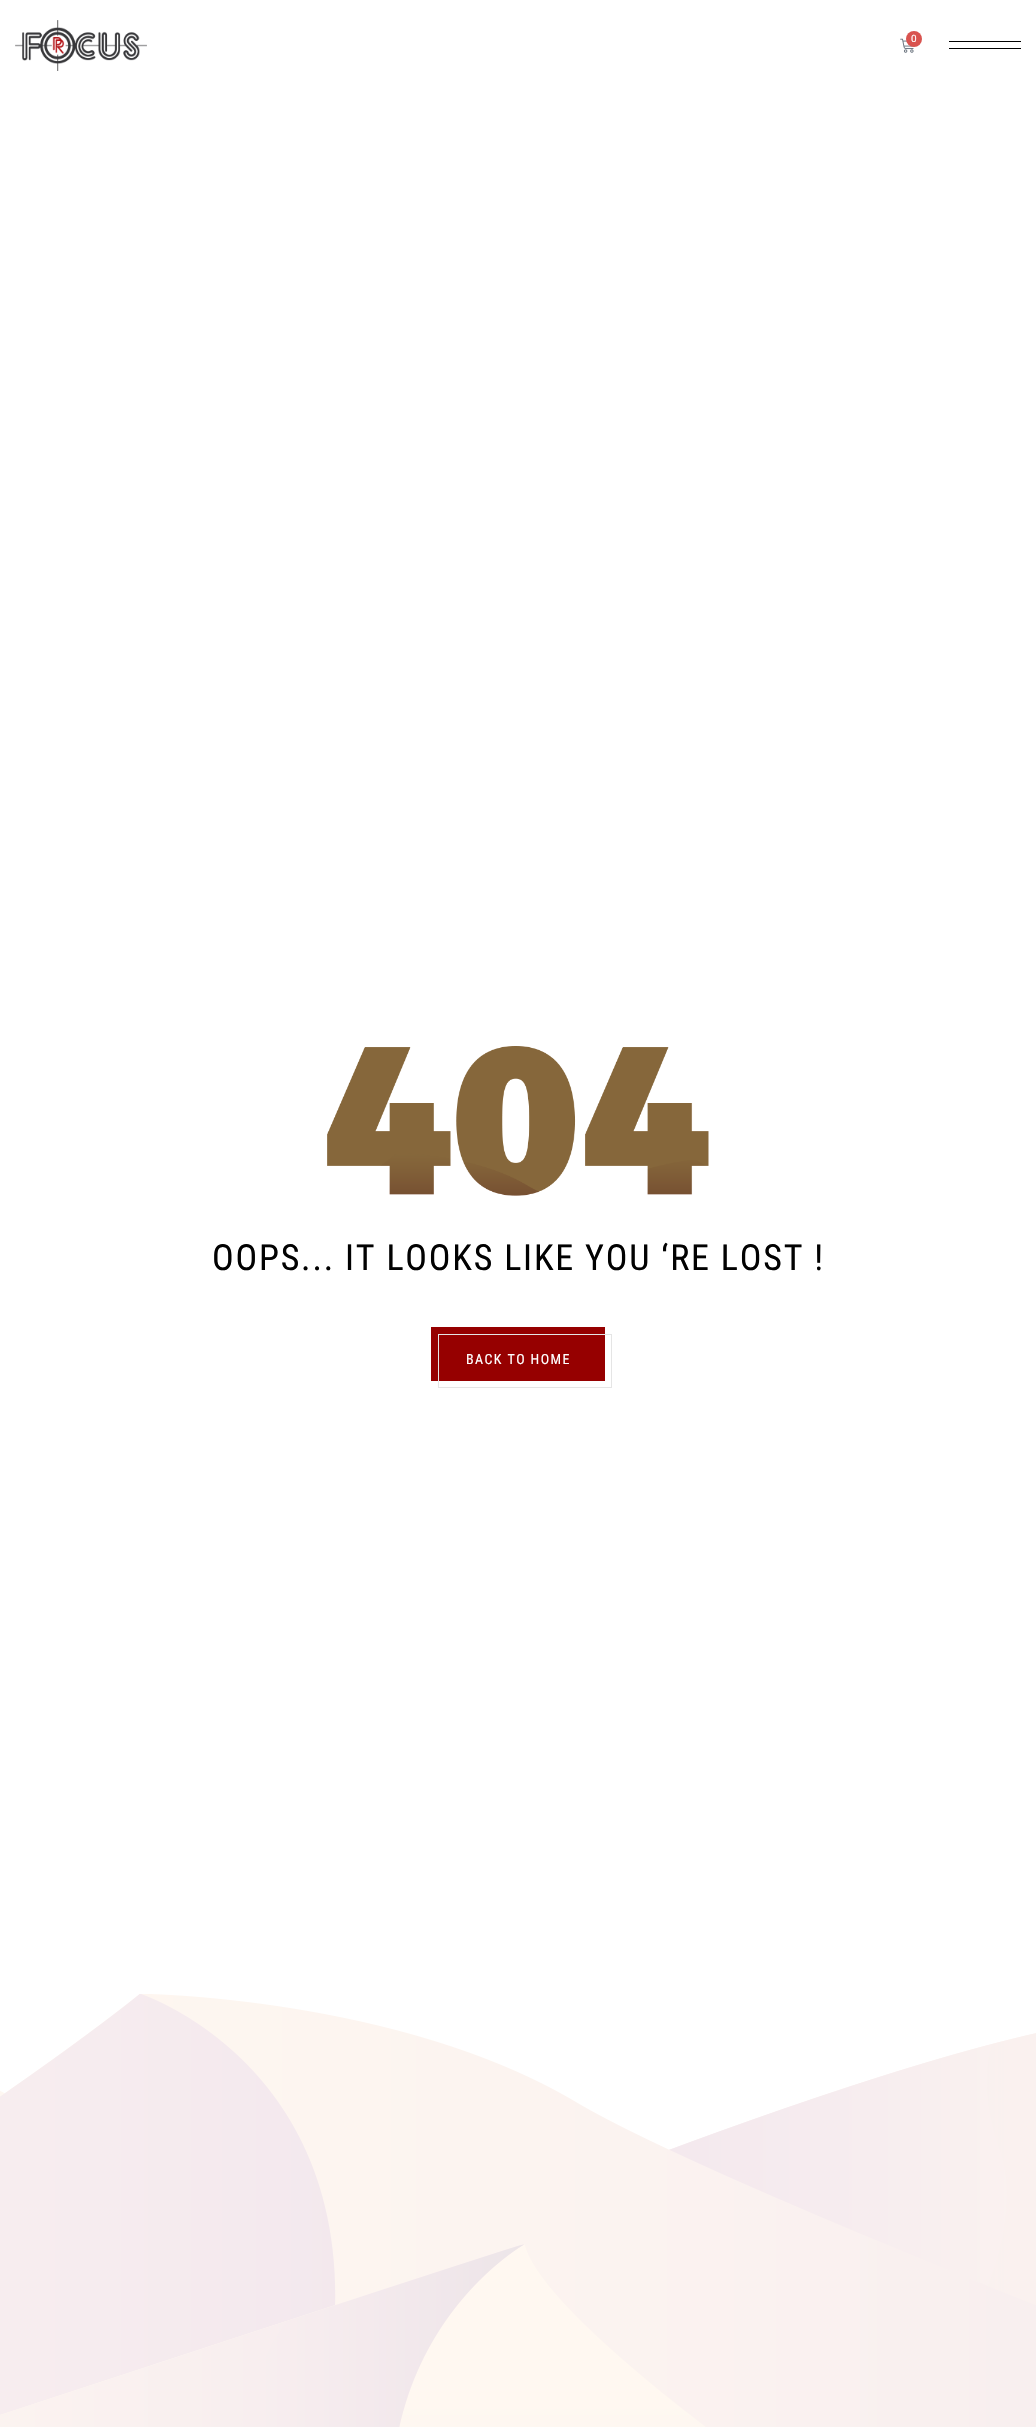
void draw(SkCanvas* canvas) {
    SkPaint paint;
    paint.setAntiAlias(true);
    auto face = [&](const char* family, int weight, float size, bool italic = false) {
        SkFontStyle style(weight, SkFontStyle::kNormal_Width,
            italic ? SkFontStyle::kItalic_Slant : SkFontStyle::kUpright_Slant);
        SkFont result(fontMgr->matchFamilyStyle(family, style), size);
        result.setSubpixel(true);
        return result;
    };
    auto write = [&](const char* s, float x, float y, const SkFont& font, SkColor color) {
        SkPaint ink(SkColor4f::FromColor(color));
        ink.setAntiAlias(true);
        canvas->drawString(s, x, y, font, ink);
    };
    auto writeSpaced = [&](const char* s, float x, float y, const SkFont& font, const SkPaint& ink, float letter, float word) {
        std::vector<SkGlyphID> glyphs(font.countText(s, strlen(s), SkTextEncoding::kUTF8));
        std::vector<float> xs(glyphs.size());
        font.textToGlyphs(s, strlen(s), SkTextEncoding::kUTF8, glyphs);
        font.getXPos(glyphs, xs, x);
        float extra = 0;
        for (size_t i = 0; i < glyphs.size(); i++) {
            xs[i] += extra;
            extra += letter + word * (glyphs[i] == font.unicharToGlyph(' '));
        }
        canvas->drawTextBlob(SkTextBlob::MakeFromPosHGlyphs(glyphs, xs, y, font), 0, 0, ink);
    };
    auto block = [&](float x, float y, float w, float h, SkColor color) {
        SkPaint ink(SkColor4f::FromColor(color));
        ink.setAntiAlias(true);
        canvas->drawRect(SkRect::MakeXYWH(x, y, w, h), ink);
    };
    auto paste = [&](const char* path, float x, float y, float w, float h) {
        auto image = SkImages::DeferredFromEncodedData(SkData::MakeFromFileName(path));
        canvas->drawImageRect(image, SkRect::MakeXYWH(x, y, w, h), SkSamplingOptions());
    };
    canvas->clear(SK_ColorWHITE);
    paste("pic1.png", 15, 20, 132, 51);
    paste("pic2.png", 900, 38, 14, 15);
    paint.setColor(SkColorSetRGB(217, 83, 79));
    canvas->drawCircle(914, 39, 8, paint);
    auto kFont1 = face("Roboto", 400, 10);
    write("0", 911, 42, kFont1, SK_ColorWHITE);
    block(949, 41, 72, 1, SK_ColorBLACK);
    block(949, 48, 72, 1, SK_ColorBLACK);
    paste("pic3.png", 0, 1994, 1036, 433);
    paste("pic4.png", 327, 1046, 382, 150);
    auto kFont2 = face("Roboto Condensed", 400, 36);
    paint.setColor(SkColorSetRGB(1, 1, 1));
    writeSpaced("OOPS... IT LOOKS LIKE YOU ‘RE LOST !", 212, 1270, kFont2, paint, 1.8f, 0);
    block(431, 1327, 174, 54, SkColorSetRGB(150, 0, 0));
    paint.setStyle(SkPaint::kStroke_Style);
    paint.setStrokeWidth(1);
    paint.setColor(SkColorSetRGB(229, 229, 229));
    canvas->drawRect(SkRect::MakeXYWH(438.5f, 1334.5f, 173, 53), paint);
    auto kFont3 = face("Roboto Condensed", 400, 14);
    paint.setStyle(SkPaint::kFill_Style);
    paint.setColor(SK_ColorWHITE);
    writeSpaced("BACK TO HOME", 466, 1364, kFont3, paint, 1.4f, 0);
}
